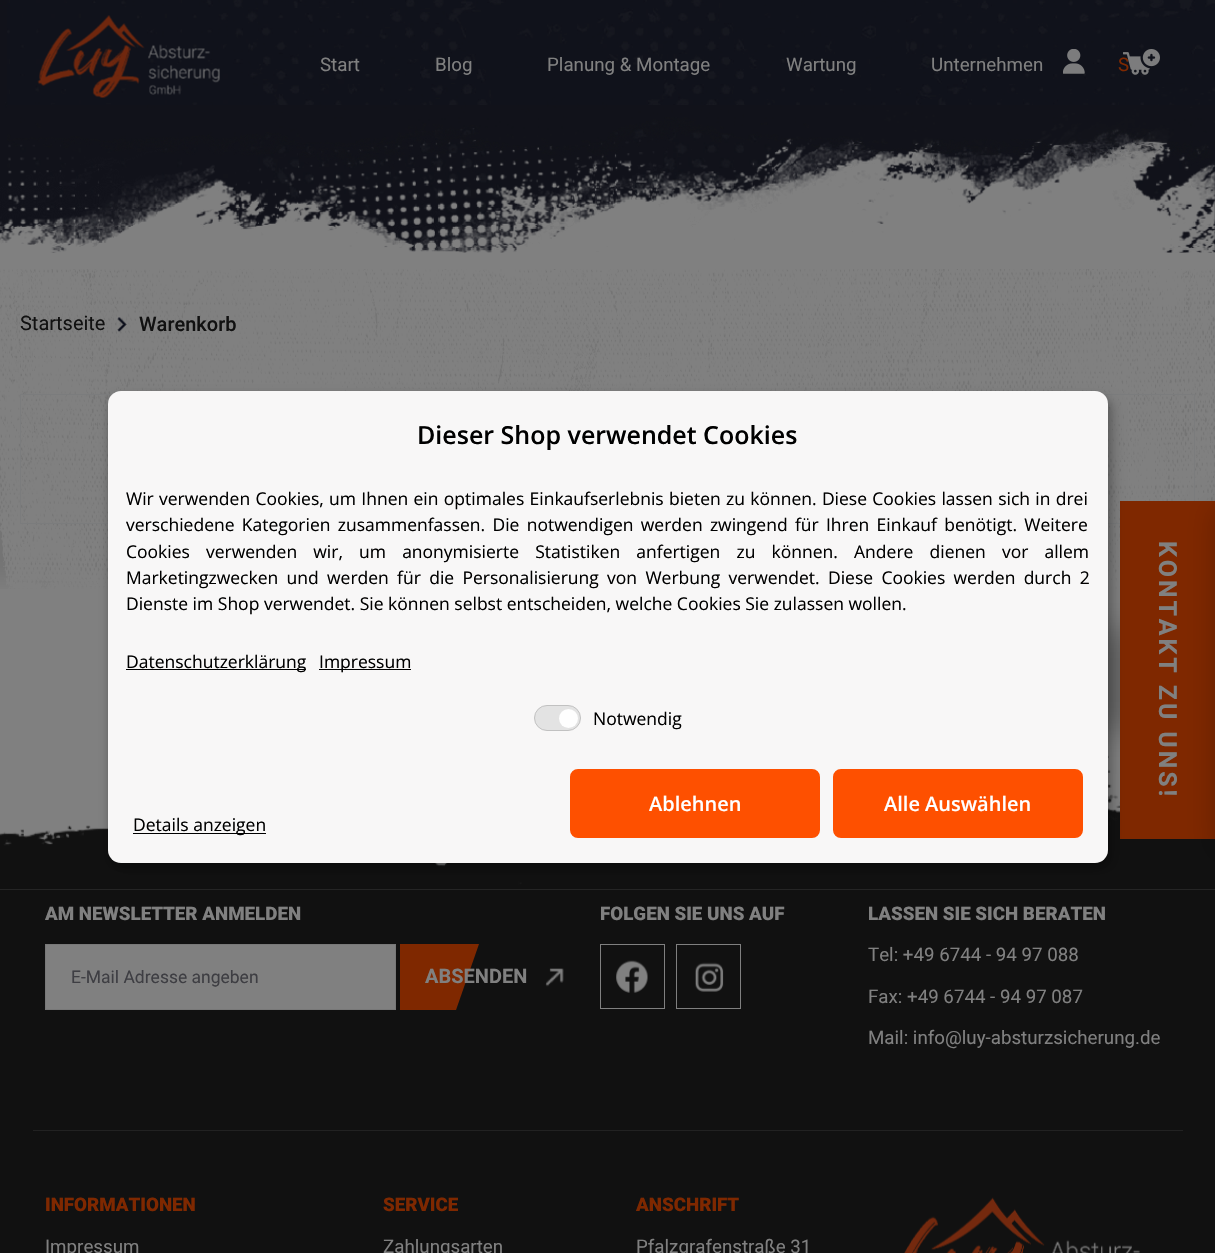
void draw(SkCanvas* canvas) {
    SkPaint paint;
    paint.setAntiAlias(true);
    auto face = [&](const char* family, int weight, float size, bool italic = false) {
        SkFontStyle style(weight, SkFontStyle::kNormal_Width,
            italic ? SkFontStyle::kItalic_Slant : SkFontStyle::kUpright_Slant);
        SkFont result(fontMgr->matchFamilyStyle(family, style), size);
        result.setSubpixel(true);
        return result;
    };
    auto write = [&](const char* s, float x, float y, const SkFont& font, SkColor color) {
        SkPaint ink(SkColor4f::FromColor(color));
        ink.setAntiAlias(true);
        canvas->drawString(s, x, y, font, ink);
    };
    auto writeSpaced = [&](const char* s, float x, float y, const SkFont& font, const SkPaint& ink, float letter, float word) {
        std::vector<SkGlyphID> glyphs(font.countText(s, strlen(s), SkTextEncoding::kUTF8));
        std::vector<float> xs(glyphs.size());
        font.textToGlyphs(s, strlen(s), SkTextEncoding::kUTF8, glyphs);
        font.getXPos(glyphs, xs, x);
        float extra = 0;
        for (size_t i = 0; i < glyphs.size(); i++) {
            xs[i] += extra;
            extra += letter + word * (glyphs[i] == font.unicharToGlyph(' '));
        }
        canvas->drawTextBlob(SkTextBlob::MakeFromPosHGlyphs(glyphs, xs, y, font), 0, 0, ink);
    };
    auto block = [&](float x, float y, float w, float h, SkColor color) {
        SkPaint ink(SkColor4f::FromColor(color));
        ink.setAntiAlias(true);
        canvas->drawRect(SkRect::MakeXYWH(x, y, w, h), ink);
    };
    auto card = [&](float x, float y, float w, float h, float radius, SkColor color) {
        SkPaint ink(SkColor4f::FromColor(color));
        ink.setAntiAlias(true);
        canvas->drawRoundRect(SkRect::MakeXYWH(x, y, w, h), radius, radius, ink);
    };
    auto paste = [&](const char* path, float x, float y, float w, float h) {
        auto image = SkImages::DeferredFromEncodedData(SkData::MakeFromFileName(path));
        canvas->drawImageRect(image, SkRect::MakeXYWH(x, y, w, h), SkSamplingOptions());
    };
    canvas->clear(SkColorSetRGB(128, 128, 128));
    paste("pic1.png", 0, 0, 1215, 253);
    paste("pic2.png", 0, 86, 1215, 167);
    paste("pic3.png", 7, 0, 1208, 105);
    paste("pic4.png", 37, 15, 183, 83);
    paste("pic5.png", 1063, 49, 22, 25);
    auto kFont1 = face("Roboto", 400, 18.75f);
    write("S", 1118, 71, kFont1, SkColorSetRGB(127, 40, 0));
    paste("pic6.png", 1123, 49, 37, 26);
    write("Start", 320, 71, kFont1, SkColorSetRGB(128, 128, 128));
    write("Blog", 435, 71, kFont1, SkColorSetRGB(128, 128, 128));
    write("Planung & Montage", 547, 71, kFont1, SkColorSetRGB(128, 128, 128));
    write("Wartung", 786, 71, kFont1, SkColorSetRGB(128, 128, 128));
    write("Unternehmen", 931, 71, kFont1, SkColorSetRGB(128, 128, 128));
    paste("pic7.png", 7, 105, 1208, 68);
    paste("pic8.png", 0, 269, 1215, 320);
    paint.setStyle(SkPaint::kStroke_Style);
    paint.setStrokeWidth(1);
    paint.setColor(SkColorSetRGB(123, 124, 125));
    canvas->drawRect(SkRect::MakeXYWH(20.5f, 394.5f, 1174, 129), paint);
    auto kFont2 = face("Roboto", 400, 20);
    write("Startseite", 20, 330, kFont2, SkColorSetRGB(17, 17, 17));
    paste("pic9.png", 117, 317, 10, 15);
    auto kFont3 = face("Roboto", 500, 20);
    write("Warenkorb", 139, 331, kFont3, SkColorSetRGB(17, 17, 17));
    paste("pic10.png", 0, 755, 1215, 135);
    paint.setStyle(SkPaint::kFill_Style);
    paint.setColor(SkColorSetARGB(51, 0, 0, 0));
    paint.setMaskFilter(SkMaskFilter::MakeBlur(kNormal_SkBlurStyle, 14.5f));
    canvas->drawRect(SkRect::MakeXYWH(998, 629, 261, 102), paint);
    paint.setMaskFilter(nullptr);
    block(1120, 501, 95, 338, SkColorSetRGB(127, 40, 0));
    paint.setColor(SkColorSetARGB(48, 0, 0, 0));
    paint.setMaskFilter(SkMaskFilter::MakeBlur(kNormal_SkBlurStyle, 6));
    canvas->drawRoundRect(SkRect::MakeXYWH(114, 398, 1000, 471), 13, 13, paint);
    paint.setMaskFilter(nullptr);
    paint.setColor(SkColorSetARGB(51, 0, 0, 0));
    paint.setMaskFilter(SkMaskFilter::MakeBlur(kNormal_SkBlurStyle, 4));
    canvas->drawRoundRect(SkRect::MakeXYWH(108, 396, 1000, 472), 13, 13, paint);
    paint.setMaskFilter(nullptr);
    card(108, 391, 1000, 472, 13, SkColorSetRGB(248, 247, 247));
    auto kFont4 = face("Open Sans", 600, 25);
    write("Dieser Shop verwendet Cookies", 417, 444, kFont4, SK_ColorBLACK);
    auto kFont5 = face("Open Sans", 400, 17.5f);
    paint.setColor(SK_ColorBLACK);
    writeSpaced("Wir verwenden Cookies, um Ihnen ein optimales Einkaufserlebnis bieten zu können. Diese Cookies lassen sich in drei", 126, 505, kFont5, paint, 0, 0.75f);
    writeSpaced("verschiedene Kategorien zusammenfassen. Die notwendigen werden zwingend für Ihren Einkauf benötigt. Weitere", 126, 531, kFont5, paint, 0, 2.75f);
    writeSpaced("Cookies verwenden wir, um anonymisierte Statistiken anfertigen zu können. Andere dienen vor allem", 126, 558, kFont5, paint, 0, 11.6f);
    writeSpaced("Marketingzwecken und werden für die Personalisierung von Werbung verwendet. Diese Cookies werden durch 2", 126, 584, kFont5, paint, 0, 3.75f);
    write("Dienste im Shop verwendet. Sie können selbst entscheiden, welche Cookies Sie zulassen wollen.", 126, 610, kFont5, SK_ColorBLACK);
    block(126, 669, 180, 1, SK_ColorBLACK);
    write("Datenschutzerklärung", 126, 668, kFont5, SK_ColorBLACK);
    block(319, 669, 92, 1, SK_ColorBLACK);
    write("Impressum", 319, 668, kFont5, SK_ColorBLACK);
    paint.setColor(SkColorSetRGB(227, 227, 227));
    canvas->drawRoundRect(SkRect::MakeXYWH(534.5f, 705.5f, 46, 25), 12.5f, 12.5f, paint);
    paint.setStyle(SkPaint::kStroke_Style);
    paint.setColor(SkColorSetRGB(193, 193, 193));
    canvas->drawRoundRect(SkRect::MakeXYWH(534.5f, 705.5f, 46, 25), 12.5f, 12.5f, paint);
    paint.setStyle(SkPaint::kFill_Style);
    paint.setColor(SkColorSetRGB(254, 254, 254));
    canvas->drawCircle(568.5f, 718.5f, 9.5f, paint);
    write("Notwendig", 593, 725, kFont5, SK_ColorBLACK);
    paint.setColor(SkColorSetRGB(254, 80, 0));
    canvas->drawRoundRect(SkRect::MakeXYWH(571.5f, 770.5f, 247, 66), 6.5f, 6.5f, paint);
    paint.setStyle(SkPaint::kStroke_Style);
    paint.setStrokeWidth(3);
    canvas->drawRoundRect(SkRect::MakeXYWH(571.5f, 770.5f, 247, 66), 6.5f, 6.5f, paint);
    auto kFont6 = face("Open Sans", 600, 20);
    write("Ablehnen", 649, 811, kFont6, SK_ColorWHITE);
    paint.setStyle(SkPaint::kFill_Style);
    canvas->drawRoundRect(SkRect::MakeXYWH(834.5f, 770.5f, 247, 66), 6.5f, 6.5f, paint);
    paint.setStyle(SkPaint::kStroke_Style);
    canvas->drawRoundRect(SkRect::MakeXYWH(834.5f, 770.5f, 247, 66), 6.5f, 6.5f, paint);
    write("Alle Auswählen", 884, 811, kFont6, SK_ColorWHITE);
    block(133, 833, 133, 1, SK_ColorBLACK);
    write("Details anzeigen", 133, 831, kFont5, SK_ColorBLACK);
    auto kFont7 = face("Roboto", 700, 25);
    paint.setStyle(SkPaint::kFill_Style);
    paint.setColor(SkColorSetRGB(128, 128, 128));
    canvas->save();
    canvas->rotate(90, 1159, 541);
    writeSpaced("KONTAKT ZU UNS!", 1159, 541, kFont7, paint, 2.9f, 0);
    canvas->restore();
    block(0, 890, 1215, 363, SkColorSetRGB(17, 17, 17));
    paint.setColor(SkColorSetARGB(51, 0, 0, 0));
    paint.setMaskFilter(SkMaskFilter::MakeBlur(kNormal_SkBlurStyle, 14.5f));
    canvas->drawRect(SkRect::MakeXYWH(1214, 508, 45, 345), paint);
    paint.setMaskFilter(nullptr);
    auto kFont8 = face("Roboto", 900, 18.75f);
    write("AM NEWSLETTER ANMELDEN", 45, 920, kFont8, SkColorSetRGB(128, 128, 128));
    paint.setColor(SkColorSetRGB(128, 128, 128));
    canvas->drawRect(SkRect::MakeXYWH(45.5f, 944.5f, 350, 65), paint);
    paint.setStyle(SkPaint::kStroke_Style);
    paint.setStrokeWidth(1);
    paint.setColor(SkColorSetRGB(120, 120, 120));
    canvas->drawRect(SkRect::MakeXYWH(45.5f, 944.5f, 350, 65), paint);
    auto kFont9 = face("Roboto", 400, 17.5f);
    write("E-Mail Adresse angeben", 71, 983, kFont9, SkColorSetRGB(62, 62, 67));
    paint.setStyle(SkPaint::kFill_Style);
    paint.setColor(SkColorSetRGB(127, 40, 0));
    canvas->drawPath(SkPathBuilder().moveTo(400, 944).lineTo(400, 1010).lineTo(456, 1010).lineTo(479, 944).close().detach(), paint);
    auto kFont10 = face("Roboto", 700, 20);
    write("ABSENDEN", 425, 983, kFont10, SkColorSetRGB(128, 128, 128));
    paste("pic11.png", 545, 968, 19, 19);
    write("FOLGEN SIE UNS AUF", 600, 920, kFont8, SkColorSetRGB(128, 128, 128));
    paint.setStyle(SkPaint::kStroke_Style);
    paint.setColor(SkColorSetRGB(128, 128, 128));
    canvas->drawRect(SkRect::MakeXYWH(600.5f, 944.5f, 64, 64), paint);
    paste("pic12.png", 616, 960, 32, 33);
    canvas->drawRect(SkRect::MakeXYWH(676.5f, 944.5f, 64, 64), paint);
    paste("pic13.png", 695, 962, 29, 30);
    write("LASSEN SIE SICH BERATEN", 868, 920, kFont8, SkColorSetRGB(128, 128, 128));
    write("Tel: +49 6744 - 94 97 088", 868, 961, kFont1, SkColorSetRGB(128, 128, 128));
    write("Fax: +49 6744 - 94 97 087", 868, 1003, kFont1, SkColorSetRGB(128, 128, 128));
    write("Mail: info@luy-absturzsicherung.de", 868, 1044, kFont1, SkColorSetRGB(128, 128, 128));
    block(33, 1130, 1150, 1, SkColorSetRGB(34, 34, 34));
    write("INFORMATIONEN", 45, 1211, kFont8, SkColorSetRGB(127, 40, 0));
    write("Impressum", 45, 1253, kFont1, SkColorSetRGB(128, 128, 128));
    write("SERVICE", 383, 1211, kFont8, SkColorSetRGB(127, 40, 0));
    write("Zahlungsarten", 383, 1253, kFont1, SkColorSetRGB(128, 128, 128));
    write("ANSCHRIFT", 636, 1211, kFont8, SkColorSetRGB(127, 40, 0));
    write("Pfalzgrafenstraße 31", 636, 1253, kFont1, SkColorSetRGB(128, 128, 128));
    paste("pic14.png", 904, 1197, 236, 56);
}
